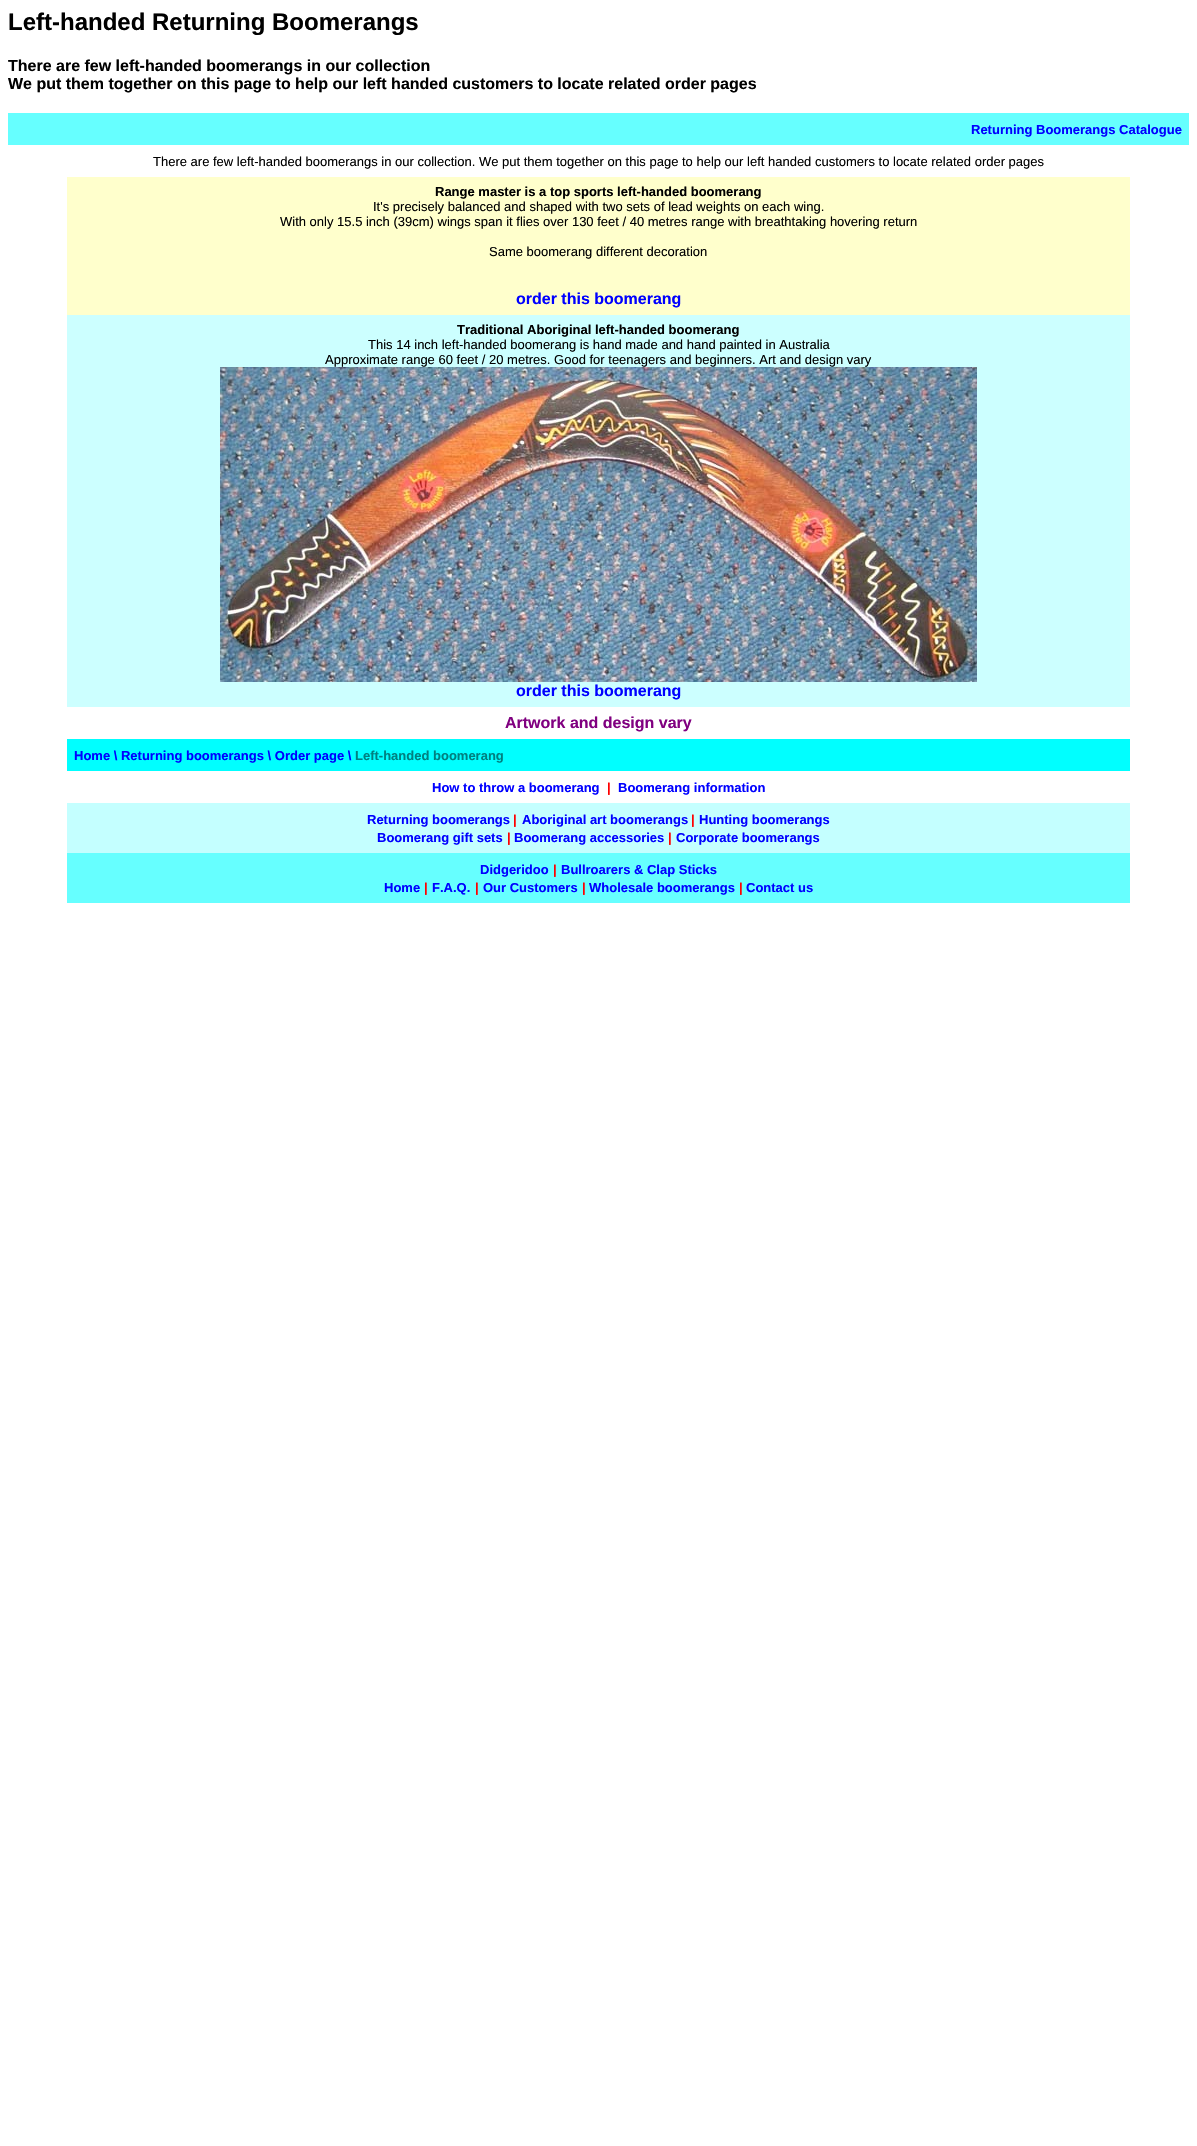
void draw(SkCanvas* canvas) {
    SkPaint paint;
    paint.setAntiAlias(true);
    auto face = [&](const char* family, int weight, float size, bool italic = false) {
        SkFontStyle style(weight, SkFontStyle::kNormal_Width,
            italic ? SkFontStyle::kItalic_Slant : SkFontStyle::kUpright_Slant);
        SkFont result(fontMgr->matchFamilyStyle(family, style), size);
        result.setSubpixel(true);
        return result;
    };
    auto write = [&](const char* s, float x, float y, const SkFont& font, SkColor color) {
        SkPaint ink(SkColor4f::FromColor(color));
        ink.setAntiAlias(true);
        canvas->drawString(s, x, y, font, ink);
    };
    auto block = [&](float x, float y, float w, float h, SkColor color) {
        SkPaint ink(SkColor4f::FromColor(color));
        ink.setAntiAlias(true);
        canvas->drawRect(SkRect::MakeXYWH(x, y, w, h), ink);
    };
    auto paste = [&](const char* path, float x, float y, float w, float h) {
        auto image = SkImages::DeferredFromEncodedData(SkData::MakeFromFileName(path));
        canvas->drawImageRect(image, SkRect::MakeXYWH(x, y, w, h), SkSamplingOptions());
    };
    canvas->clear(SK_ColorWHITE);
    auto kFont1 = face("Liberation Sans", 700, 24);
    write("Left-handed Returning Boomerangs", 8, 30, kFont1, SK_ColorBLACK);
    auto kFont2 = face("Liberation Sans", 700, 16);
    write("There are few left-handed boomerangs in our collection", 8, 71, kFont2, SK_ColorBLACK);
    write("We put them together on this page to help our left handed customers to locate related order pages", 8, 89, kFont2, SK_ColorBLACK);
    block(8, 113, 1181, 32, SkColorSetRGB(102, 255, 255));
    auto kFont3 = face("Liberation Sans", 700, 13);
    write("Returning Boomerangs Catalogue", 971, 134, kFont3, SkColorSetRGB(0, 0, 255));
    auto kFont4 = face("Liberation Sans", 400, 13);
    write("There are few left-handed boomerangs in our collection. We put them together on this page to help our left handed customers to locate related order pages", 153, 166, kFont4, SK_ColorBLACK);
    block(67, 177, 1063, 138, SkColorSetRGB(255, 255, 204));
    write("Range master is a top sports left-handed boomerang", 435, 196, kFont3, SK_ColorBLACK);
    write("It's precisely balanced and shaped with two sets of lead weights on each wing.", 373, 211, kFont4, SK_ColorBLACK);
    write("With only 15.5 inch (39cm) wings span it flies over 130 feet / 40 metres range with breathtaking hovering return", 280, 226, kFont4, SK_ColorBLACK);
    write("Same boomerang different decoration", 489, 256, kFont4, SK_ColorBLACK);
    write("order this boomerang", 516, 304, kFont2, SkColorSetRGB(0, 0, 255));
    block(67, 315, 1063, 392, SkColorSetRGB(204, 255, 255));
    write("Traditional Aboriginal left-handed boomerang", 457, 334, kFont3, SK_ColorBLACK);
    write("This 14 inch left-handed boomerang is hand made and hand painted in Australia", 368, 349, kFont4, SK_ColorBLACK);
    write("Approximate range 60 feet / 20 metres. Good for teenagers and beginners. Art and design vary", 325, 364, kFont4, SK_ColorBLACK);
    paste("pic1.png", 220, 367, 757, 315);
    write("order this boomerang", 516, 696, kFont2, SkColorSetRGB(0, 0, 255));
    write("Artwork and design vary", 505, 728, kFont2, SkColorSetRGB(128, 0, 128));
    block(67, 739, 1063, 32, SkColorSetRGB(0, 255, 255));
    write("Home \\ Returning boomerangs \\ Order page \\", 74, 760, kFont3, SkColorSetRGB(0, 0, 255));
    write("Left-handed boomerang", 355, 760, kFont3, SkColorSetRGB(0, 128, 128));
    write("How to throw a boomerang", 432, 792, kFont3, SkColorSetRGB(0, 0, 255));
    write("|", 607, 792, kFont3, SkColorSetRGB(255, 0, 0));
    write("Boomerang information", 618, 792, kFont3, SkColorSetRGB(0, 0, 255));
    block(67, 803, 1063, 50, SkColorSetRGB(196, 255, 255));
    write("Returning boomerangs", 367, 824, kFont3, SkColorSetRGB(0, 0, 255));
    write("|", 513, 824, kFont3, SkColorSetRGB(255, 0, 0));
    write("Aboriginal art boomerangs", 522, 824, kFont3, SkColorSetRGB(0, 0, 255));
    write("|", 691, 824, kFont3, SkColorSetRGB(255, 0, 0));
    write("Hunting boomerangs", 699, 824, kFont3, SkColorSetRGB(0, 0, 255));
    write("Boomerang gift sets", 377, 842, kFont3, SkColorSetRGB(0, 0, 255));
    write("|", 507, 842, kFont3, SkColorSetRGB(255, 0, 0));
    write("Boomerang accessories", 514, 842, kFont3, SkColorSetRGB(0, 0, 255));
    write("|", 668, 842, kFont3, SkColorSetRGB(255, 0, 0));
    write("Corporate boomerangs", 676, 842, kFont3, SkColorSetRGB(0, 0, 255));
    block(67, 853, 1063, 50, SkColorSetRGB(102, 255, 255));
    write("Didgeridoo", 480, 874, kFont3, SkColorSetRGB(0, 0, 255));
    write("|", 553, 874, kFont3, SkColorSetRGB(255, 0, 0));
    write("Bullroarers & Clap Sticks", 561, 874, kFont3, SkColorSetRGB(0, 0, 255));
    write("Home", 384, 892, kFont3, SkColorSetRGB(0, 0, 255));
    write("|", 424, 892, kFont3, SkColorSetRGB(255, 0, 0));
    write("F.A.Q.", 432, 892, kFont3, SkColorSetRGB(0, 0, 255));
    write("|", 475, 892, kFont3, SkColorSetRGB(255, 0, 0));
    write("Our Customers", 483, 892, kFont3, SkColorSetRGB(0, 0, 255));
    write("|", 582, 892, kFont3, SkColorSetRGB(255, 0, 0));
    write("Wholesale boomerangs", 589, 892, kFont3, SkColorSetRGB(0, 0, 255));
    write("|", 739, 892, kFont3, SkColorSetRGB(255, 0, 0));
    write("Contact us", 746, 892, kFont3, SkColorSetRGB(0, 0, 255));
}
